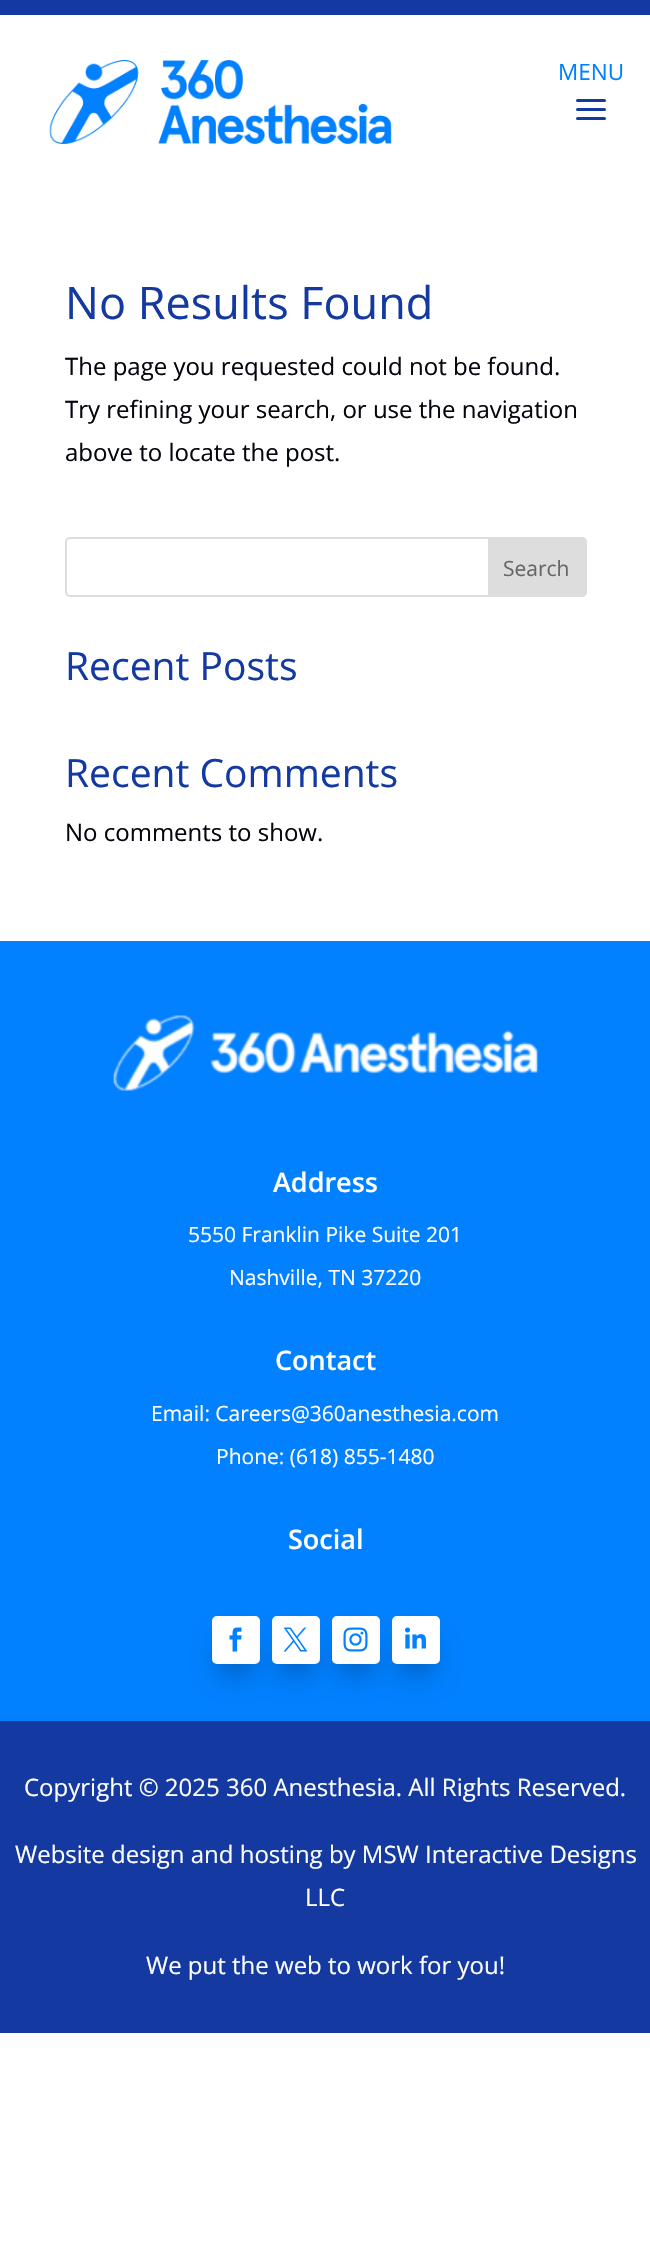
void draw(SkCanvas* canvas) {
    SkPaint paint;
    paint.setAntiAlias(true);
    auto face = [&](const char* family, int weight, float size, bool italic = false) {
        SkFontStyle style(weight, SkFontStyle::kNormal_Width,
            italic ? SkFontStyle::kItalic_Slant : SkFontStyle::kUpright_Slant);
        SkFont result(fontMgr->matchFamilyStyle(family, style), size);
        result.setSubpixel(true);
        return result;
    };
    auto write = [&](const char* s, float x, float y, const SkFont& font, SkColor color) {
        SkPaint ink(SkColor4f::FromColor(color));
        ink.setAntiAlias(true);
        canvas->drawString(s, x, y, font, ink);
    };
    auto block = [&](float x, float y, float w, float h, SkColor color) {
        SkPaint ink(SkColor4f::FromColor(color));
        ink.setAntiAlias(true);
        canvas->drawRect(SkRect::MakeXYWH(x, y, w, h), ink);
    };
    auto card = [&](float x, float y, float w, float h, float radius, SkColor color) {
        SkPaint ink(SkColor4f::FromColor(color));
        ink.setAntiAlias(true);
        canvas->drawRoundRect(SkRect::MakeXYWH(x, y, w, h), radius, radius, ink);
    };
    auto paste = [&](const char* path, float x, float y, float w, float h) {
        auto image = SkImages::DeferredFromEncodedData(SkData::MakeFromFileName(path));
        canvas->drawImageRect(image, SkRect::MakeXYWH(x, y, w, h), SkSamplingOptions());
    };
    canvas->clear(SK_ColorWHITE);
    auto kFont1 = face("Open Sans", 400, 22.5f);
    write("MENU", 558, 80, kFont1, SkColorSetRGB(1, 128, 255));
    card(576, 108, 30, 3, 1.5f, SkColorSetRGB(20, 58, 162));
    card(576, 99, 30, 3, 1.5f, SkColorSetRGB(20, 58, 162));
    card(576, 117, 30, 3, 1.5f, SkColorSetRGB(20, 58, 162));
    block(0, 0, 650, 15, SkColorSetRGB(20, 58, 162));
    paste("pic1.png", 49, 60, 343, 84);
    auto kFont2 = face("Open Sans", 400, 45);
    write("No Results Found", 65, 319, kFont2, SkColorSetRGB(20, 58, 162));
    auto kFont3 = face("Open Sans", 400, 24);
    write("The page you requested could not be found.", 65, 375, kFont3, SkColorSetRGB(4, 6, 13));
    write("Try refining your search, or use the navigation", 65, 418, kFont3, SkColorSetRGB(4, 6, 13));
    write("above to locate the post.", 65, 461, kFont3, SkColorSetRGB(4, 6, 13));
    paint.setStyle(SkPaint::kStroke_Style);
    paint.setStrokeWidth(2);
    paint.setColor(SkColorSetRGB(221, 221, 221));
    canvas->drawRoundRect(SkRect::MakeXYWH(66, 538, 520, 58), 4, 4, paint);
    paint.setStyle(SkPaint::kFill_Style);
    canvas->drawPath(SkPathBuilder().moveTo(489, 538).lineTo(582, 538).cubicTo(584, 538, 586, 540, 586, 542).lineTo(586, 592).cubicTo(586, 594, 584, 596, 582, 596).lineTo(489, 596).close().detach(), paint);
    paint.setStyle(SkPaint::kStroke_Style);
    canvas->drawPath(SkPathBuilder().moveTo(489, 538).lineTo(582, 538).cubicTo(584, 538, 586, 540, 586, 542).lineTo(586, 592).cubicTo(586, 594, 584, 596, 582, 596).lineTo(489, 596).close().detach(), paint);
    auto kFont4 = face("Open Sans", 400, 21);
    write("Search", 503, 576, kFont4, SkColorSetRGB(102, 102, 102));
    auto kFont5 = face("Open Sans", 400, 39);
    write("Recent Posts", 65, 680, kFont5, SkColorSetRGB(20, 58, 162));
    write("Recent Comments", 65, 787, kFont5, SkColorSetRGB(20, 58, 162));
    write("No comments to show.", 65, 841, kFont3, SkColorSetRGB(4, 6, 13));
    block(0, 941, 650, 780, SkColorSetRGB(1, 128, 255));
    paste("pic2.png", 112, 1015, 427, 76);
    auto kFont6 = face("Open Sans", 600, 27);
    write("Address", 273, 1192, kFont6, SK_ColorWHITE);
    write("5550 Franklin Pike Suite 201", 188, 1242, kFont4, SK_ColorWHITE);
    write("Nashville, TN 37220", 229, 1285, kFont4, SK_ColorWHITE);
    write("Contact", 275, 1370, kFont6, SK_ColorWHITE);
    write("Email: Careers@360anesthesia.com", 151, 1421, kFont4, SK_ColorWHITE);
    write("Phone: (618) 855-1480", 216, 1464, kFont4, SK_ColorWHITE);
    write("Social", 288, 1549, kFont6, SK_ColorWHITE);
    paint.setStyle(SkPaint::kFill_Style);
    paint.setColor(SkColorSetARGB(77, 0, 0, 0));
    paint.setMaskFilter(SkMaskFilter::MakeBlur(kNormal_SkBlurStyle, 13.5f));
    canvas->drawRect(SkRect::MakeXYWH(221, 1643, 30, 30), paint);
    paint.setMaskFilter(nullptr);
    card(212, 1616, 48, 48, 5, SK_ColorWHITE);
    paint.setMaskFilter(SkMaskFilter::MakeBlur(kNormal_SkBlurStyle, 13.5f));
    canvas->drawRect(SkRect::MakeXYWH(281, 1643, 30, 30), paint);
    paint.setMaskFilter(nullptr);
    paste("pic3.png", 229, 1627, 13, 25);
    card(272, 1616, 48, 48, 5, SK_ColorWHITE);
    paint.setMaskFilter(SkMaskFilter::MakeBlur(kNormal_SkBlurStyle, 13.5f));
    canvas->drawRect(SkRect::MakeXYWH(341, 1643, 30, 30), paint);
    paint.setMaskFilter(nullptr);
    paste("pic4.png", 283, 1627, 25, 25);
    card(332, 1616, 48, 48, 5, SK_ColorWHITE);
    paint.setMaskFilter(SkMaskFilter::MakeBlur(kNormal_SkBlurStyle, 13.5f));
    canvas->drawRect(SkRect::MakeXYWH(401, 1643, 30, 30), paint);
    paint.setMaskFilter(nullptr);
    paste("pic5.png", 343, 1627, 25, 25);
    card(392, 1616, 48, 48, 5, SK_ColorWHITE);
    paste("pic6.png", 405, 1627, 21, 22);
    block(0, 1721, 650, 312, SkColorSetRGB(20, 58, 162));
    write("Copyright © 2025 360 Anesthesia. All Rights Reserved.", 24, 1796, kFont3, SK_ColorWHITE);
    write("Website design and hosting by MSW Interactive Designs", 15, 1863, kFont3, SK_ColorWHITE);
    write("LLC", 305, 1906, kFont3, SK_ColorWHITE);
    write("We put the web to work for you!", 146, 1974, kFont3, SK_ColorWHITE);
}
